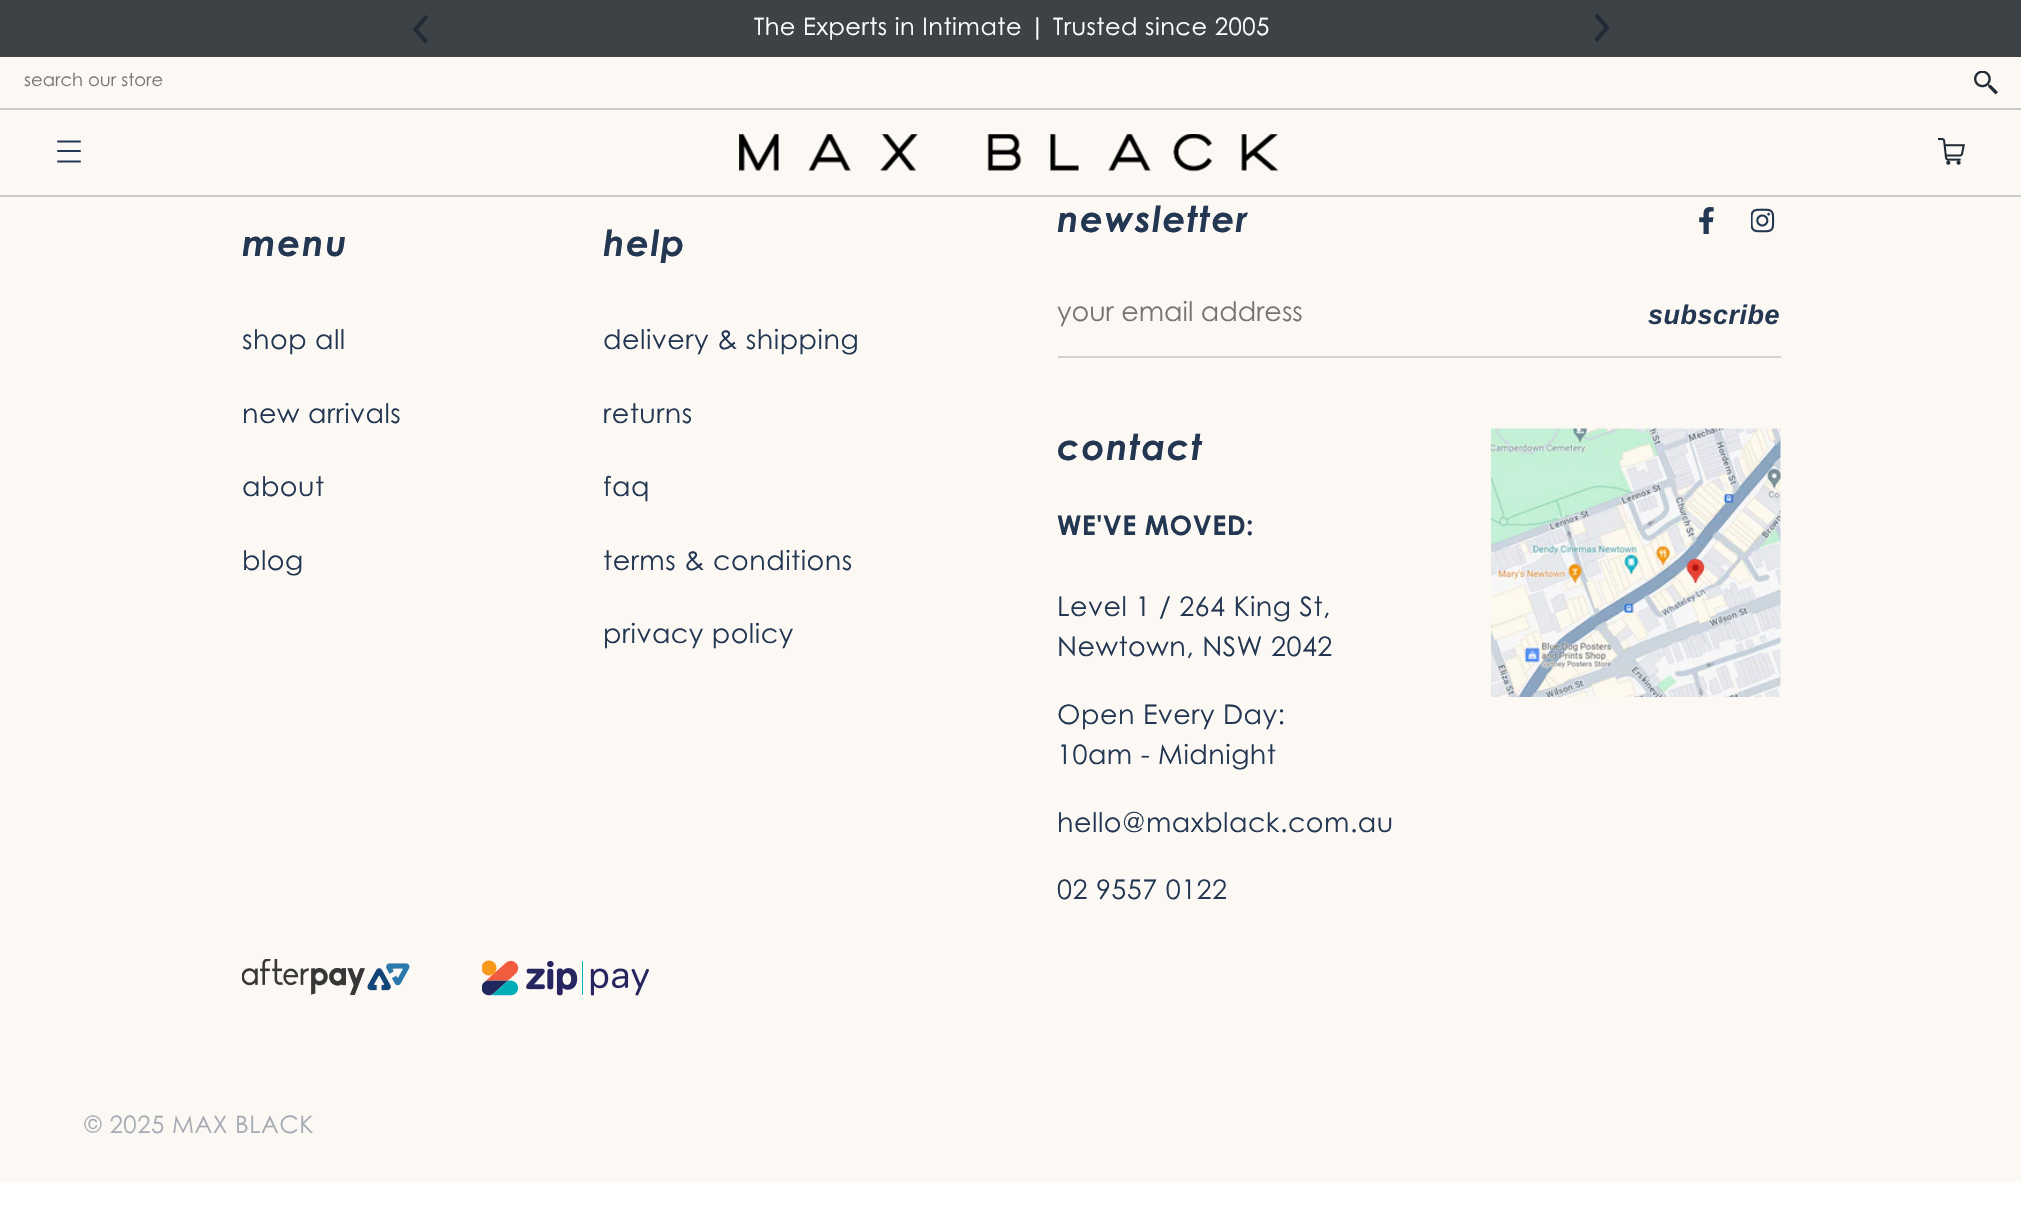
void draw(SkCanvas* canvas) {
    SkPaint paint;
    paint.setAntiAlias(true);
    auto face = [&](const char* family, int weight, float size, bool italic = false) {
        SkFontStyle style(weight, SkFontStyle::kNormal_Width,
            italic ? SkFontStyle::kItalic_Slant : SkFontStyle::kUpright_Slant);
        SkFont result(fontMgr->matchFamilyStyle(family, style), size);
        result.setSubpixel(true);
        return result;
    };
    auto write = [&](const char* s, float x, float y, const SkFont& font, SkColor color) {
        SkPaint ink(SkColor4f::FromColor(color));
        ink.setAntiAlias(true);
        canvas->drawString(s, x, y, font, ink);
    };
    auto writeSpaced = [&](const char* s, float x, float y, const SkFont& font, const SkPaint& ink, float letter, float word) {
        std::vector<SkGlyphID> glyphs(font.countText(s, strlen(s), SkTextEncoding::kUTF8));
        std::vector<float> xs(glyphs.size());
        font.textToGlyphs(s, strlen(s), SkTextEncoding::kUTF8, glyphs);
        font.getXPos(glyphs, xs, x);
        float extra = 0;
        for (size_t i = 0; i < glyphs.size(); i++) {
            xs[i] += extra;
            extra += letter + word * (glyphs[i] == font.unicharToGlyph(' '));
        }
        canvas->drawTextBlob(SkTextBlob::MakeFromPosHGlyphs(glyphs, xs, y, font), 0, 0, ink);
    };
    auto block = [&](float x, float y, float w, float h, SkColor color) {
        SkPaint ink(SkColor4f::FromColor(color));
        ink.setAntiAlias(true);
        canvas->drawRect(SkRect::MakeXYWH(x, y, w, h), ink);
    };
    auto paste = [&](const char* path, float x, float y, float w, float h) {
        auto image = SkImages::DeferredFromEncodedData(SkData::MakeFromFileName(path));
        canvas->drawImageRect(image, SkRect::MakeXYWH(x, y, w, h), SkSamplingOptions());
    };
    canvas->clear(SK_ColorWHITE);
    block(0, 57, 2021, 138, SkColorSetRGB(252, 249, 245));
    block(0, 0, 2021, 57, SkColorSetRGB(61, 66, 70));
    paste("pic1.png", 412, 15, 16, 29);
    auto kFont1 = face("Century Gothic", 500, 24);
    paint.setColor(SK_ColorWHITE);
    writeSpaced("The Experts in Intimate | Trusted since 2005", 754, 35, kFont1, paint, 0.5f, 0);
    paste("pic2.png", 1595, 14, 15, 28);
    auto kFont2 = face("Century Gothic", 500, 18);
    write("search our store", 24, 86, kFont2, SkColorSetRGB(117, 117, 117));
    paste("pic3.png", 1974, 71, 24, 24);
    block(0, 108, 2021, 2, SkColorSetRGB(202, 202, 201));
    block(0, 195, 2021, 2, SkColorSetRGB(202, 202, 201));
    paint.setStyle(SkPaint::kStroke_Style);
    paint.setStrokeWidth(2);
    paint.setStrokeCap(SkPaint::kRound_Cap);
    paint.setStrokeJoin(SkPaint::kBevel_Join);
    paint.setColor(SkColorSetRGB(36, 55, 82));
    canvas->drawPath(SkPathBuilder().moveTo(58, 141.5f).lineTo(80, 141.5f).moveTo(58, 151).lineTo(80, 151).moveTo(58, 161.5f).lineTo(80, 161.5f).detach(), paint);
    paste("pic4.png", 739, 134, 540, 38);
    paste("pic5.png", 1938, 138, 27, 27);
    block(0, 197, 2021, 985, SkColorSetRGB(252, 249, 245));
    auto kFont3 = face("Century Gothic", 700, 36, true);
    paint.setStyle(SkPaint::kFill_Style);
    writeSpaced("menu", 242, 256, kFont3, paint, 1.5f, 0);
    auto kFont4 = face("Century Gothic", 500, 27);
    writeSpaced("shop all", 242, 349, kFont4, paint, 0.5f, 0);
    writeSpaced("new arrivals", 242, 423, kFont4, paint, 0.5f, 0);
    writeSpaced("about", 242, 496, kFont4, paint, 0.5f, 0);
    writeSpaced("blog", 242, 570, kFont4, paint, 0.5f, 0);
    writeSpaced("help", 603, 256, kFont3, paint, 1.5f, 0);
    writeSpaced("delivery & shipping", 603, 349, kFont4, paint, 0.5f, 0);
    writeSpaced("returns", 603, 423, kFont4, paint, 0.5f, 0);
    writeSpaced("faq", 603, 496, kFont4, paint, 0.5f, 0);
    writeSpaced("terms & conditions", 603, 570, kFont4, paint, 0.5f, 0);
    writeSpaced("privacy policy", 603, 643, kFont4, paint, 0.5f, 0);
    writeSpaced("newsletter", 1057, 232, kFont3, paint, 1.5f, 0);
    paste("pic6.png", 1699, 207, 15, 27);
    paste("pic7.png", 1751, 208, 24, 25);
    block(1058, 356, 723, 2, SkColorSetRGB(209, 210, 212));
    write("your email address", 1057, 321, kFont4, SkColorSetRGB(117, 117, 117));
    auto kFont5 = face("Liberation Sans", 700, 27, true);
    writeSpaced("subscribe", 1648, 324, kFont5, paint, 0.5f, 0);
    writeSpaced("contact", 1057, 460, kFont3, paint, 1.5f, 0);
    auto kFont6 = face("Century Gothic", 700, 27);
    writeSpaced("WE'VE MOVED:", 1057, 535, kFont6, paint, 0.5f, 0);
    writeSpaced("Level 1 / 264 King St,", 1057, 616, kFont4, paint, 0.5f, 0);
    writeSpaced("Newtown, NSW 2042", 1057, 656, kFont4, paint, 0.5f, 0);
    writeSpaced("Open Every Day:", 1057, 724, kFont4, paint, 0.5f, 0);
    writeSpaced("10am - Midnight", 1057, 764, kFont4, paint, 0.5f, 0);
    writeSpaced("hello@maxblack.com.au", 1057, 832, kFont4, paint, 0.5f, 0);
    writeSpaced("02 9557 0122", 1057, 899, kFont4, paint, 0.5f, 0);
    paste("pic8.png", 1491, 428, 290, 269);
    paste("pic9.png", 242, 959, 168, 36);
    paste("pic10.png", 482, 960, 167, 36);
    paint.setColor(SkColorSetRGB(166, 171, 180));
    writeSpaced("© 2025 MAX BLACK", 84, 1133, kFont1, paint, 0.5f, 0);
}
